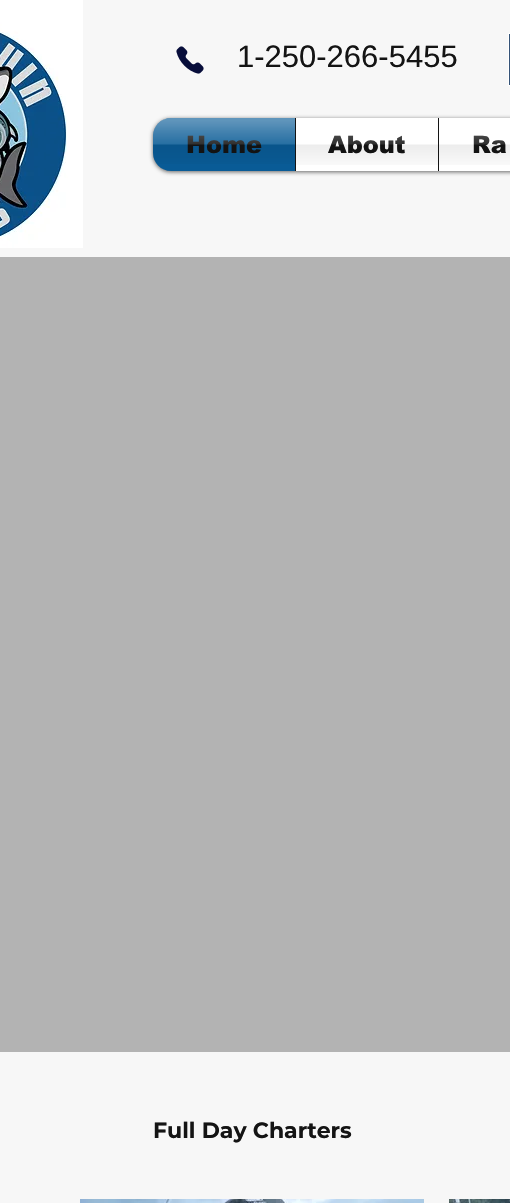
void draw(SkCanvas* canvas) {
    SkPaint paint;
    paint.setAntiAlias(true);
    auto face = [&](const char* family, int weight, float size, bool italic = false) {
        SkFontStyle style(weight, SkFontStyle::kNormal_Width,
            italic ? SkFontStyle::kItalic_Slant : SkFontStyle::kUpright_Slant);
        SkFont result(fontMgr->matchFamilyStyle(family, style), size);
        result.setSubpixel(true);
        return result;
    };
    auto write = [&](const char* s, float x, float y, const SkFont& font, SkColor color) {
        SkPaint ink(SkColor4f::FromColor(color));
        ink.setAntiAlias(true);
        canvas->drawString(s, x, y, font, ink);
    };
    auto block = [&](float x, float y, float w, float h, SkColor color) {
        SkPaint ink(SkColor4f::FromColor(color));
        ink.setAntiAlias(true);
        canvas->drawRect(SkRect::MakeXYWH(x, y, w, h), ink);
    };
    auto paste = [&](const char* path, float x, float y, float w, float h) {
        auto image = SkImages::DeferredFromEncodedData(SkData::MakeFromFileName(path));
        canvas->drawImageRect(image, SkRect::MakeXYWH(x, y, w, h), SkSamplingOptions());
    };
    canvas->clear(SkColorSetRGB(247, 247, 247));
    paste("pic1.png", 0, 0, 83, 248);
    paste("pic2.png", 176, 46, 28, 28);
    auto kFont1 = face("Liberation Sans", 400, 31);
    write("1-250-266-5455", 237, 67, kFont1, SkColorSetRGB(20, 20, 20));
    paint.setColor(SkColorSetRGB(53, 83, 119));
    canvas->drawRect(SkRect::MakeXYWH(508.5f, 33.5f, 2, 52), paint);
    paint.setStyle(SkPaint::kStroke_Style);
    paint.setStrokeWidth(1);
    paint.setColor(SK_ColorWHITE);
    canvas->drawRect(SkRect::MakeXYWH(508.5f, 33.5f, 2, 52), paint);
    paint.setStyle(SkPaint::kFill_Style);
    paint.setColor(SkColorSetARGB(153, 0, 0, 0));
    paint.setMaskFilter(SkMaskFilter::MakeBlur(kNormal_SkBlurStyle, 2));
    canvas->drawRoundRect(SkRect::MakeXYWH(153, 119, 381, 53), 18, 18, paint);
    paint.setMaskFilter(nullptr);
    paste("pic3.png", 153, 153, 3, 9);
    paint.setColor(SkColorSetRGB(9, 91, 150));
    canvas->drawPath(SkPathBuilder().moveTo(171, 118).lineTo(295, 118).lineTo(295, 171).lineTo(171, 171).cubicTo(161, 171, 153, 163, 153, 153).lineTo(153, 136).cubicTo(153, 126, 161, 118, 171, 118).close().detach(), paint);
    auto kFont2 = face("arial", 900, 24);
    write("Home", 186, 153, kFont2, SkColorSetRGB(20, 20, 20));
    paste("pic4.png", 153, 118, 142, 46);
    block(296, 118, 142, 53, SK_ColorWHITE);
    block(295, 118, 1, 53, SkColorSetRGB(20, 20, 20));
    write("About", 328, 153, kFont2, SkColorSetRGB(20, 20, 20));
    paste("pic5.png", 296, 135, 142, 30);
    block(439, 118, 71, 53, SK_ColorWHITE);
    block(438, 118, 1, 53, SkColorSetRGB(20, 20, 20));
    write("Ra", 472, 153, kFont2, SkColorSetRGB(20, 20, 20));
    paste("pic6.png", 439, 135, 71, 30);
    block(0, 257, 510, 795, SkColorSetRGB(179, 179, 179));
    auto kFont3 = face("Montserrat", 700, 22);
    write("Full Day Charters", 153, 1138, kFont3, SkColorSetRGB(20, 20, 20));
    paste("pic7.png", 80, 1199, 344, 4);
    paste("pic8.png", 449, 1199, 61, 4);
}
